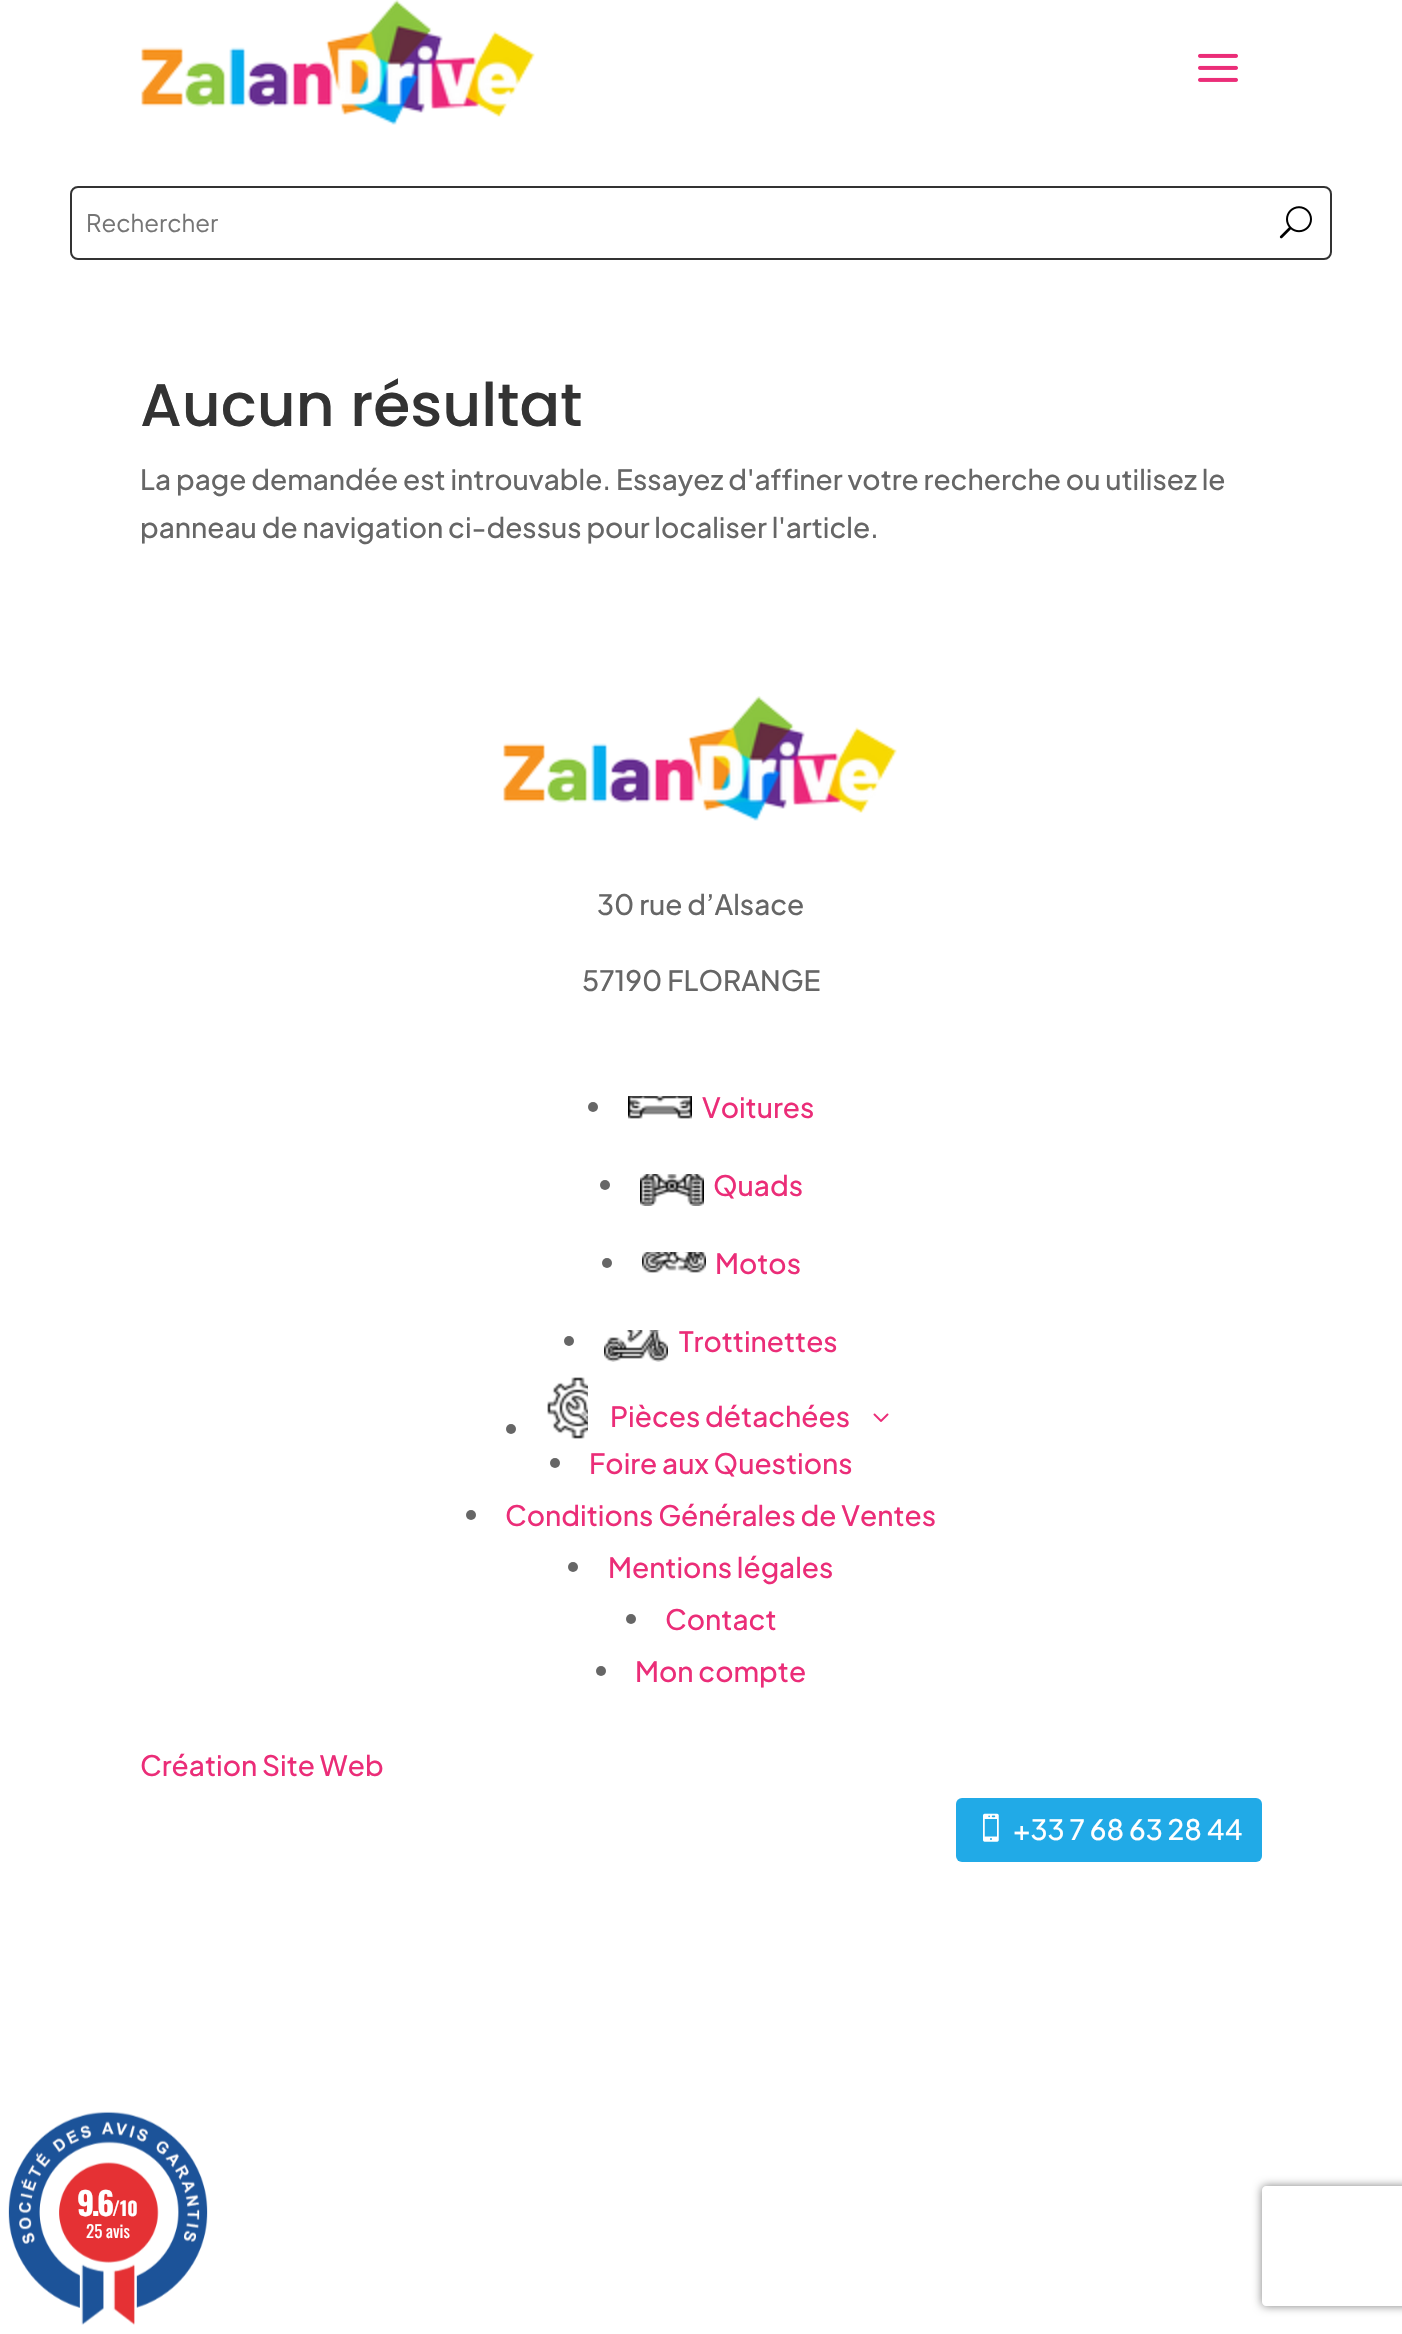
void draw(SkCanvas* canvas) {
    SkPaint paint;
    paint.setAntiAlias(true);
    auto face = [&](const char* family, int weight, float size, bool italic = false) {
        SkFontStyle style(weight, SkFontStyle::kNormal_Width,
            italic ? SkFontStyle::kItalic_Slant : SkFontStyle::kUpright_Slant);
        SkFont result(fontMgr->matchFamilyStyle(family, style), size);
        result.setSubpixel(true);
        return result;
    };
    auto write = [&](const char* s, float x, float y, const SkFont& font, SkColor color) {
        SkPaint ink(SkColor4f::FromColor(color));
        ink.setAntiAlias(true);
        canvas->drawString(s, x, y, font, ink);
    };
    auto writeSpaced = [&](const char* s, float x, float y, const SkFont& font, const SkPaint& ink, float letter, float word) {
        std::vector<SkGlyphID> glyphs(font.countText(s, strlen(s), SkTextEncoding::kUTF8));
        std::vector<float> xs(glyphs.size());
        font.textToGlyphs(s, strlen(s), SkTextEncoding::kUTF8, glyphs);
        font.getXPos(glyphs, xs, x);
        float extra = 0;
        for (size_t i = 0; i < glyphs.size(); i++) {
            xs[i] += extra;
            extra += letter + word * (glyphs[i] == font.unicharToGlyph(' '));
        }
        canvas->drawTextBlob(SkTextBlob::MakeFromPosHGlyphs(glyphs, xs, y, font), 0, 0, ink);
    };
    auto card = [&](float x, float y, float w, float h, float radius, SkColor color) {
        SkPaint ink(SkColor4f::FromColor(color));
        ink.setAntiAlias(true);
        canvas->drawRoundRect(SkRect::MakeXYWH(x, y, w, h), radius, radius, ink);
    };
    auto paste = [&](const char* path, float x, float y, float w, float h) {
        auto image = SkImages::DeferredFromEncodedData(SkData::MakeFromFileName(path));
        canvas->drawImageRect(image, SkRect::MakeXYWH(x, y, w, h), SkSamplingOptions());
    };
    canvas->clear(SK_ColorWHITE);
    paste("pic1.png", 141, 0, 394, 125);
    paste("pic2.png", 1198, 53, 40, 29);
    paint.setStyle(SkPaint::kStroke_Style);
    paint.setStrokeWidth(2);
    paint.setColor(SkColorSetRGB(51, 51, 51));
    canvas->drawRoundRect(SkRect::MakeXYWH(71, 187, 1260, 72), 7, 7, paint);
    auto kFont1 = face("Plus Jakarta Sans", 400, 24);
    write("Rechercher", 86, 232, kFont1, SkColorSetRGB(117, 117, 117));
    paste("pic3.png", 1279, 206, 33, 33);
    auto kFont2 = face("Poppins", 500, 60);
    write("Aucun résultat", 140, 426, kFont2, SkColorSetRGB(51, 51, 51));
    auto kFont3 = face("Plus Jakarta Sans", 500, 28);
    write("La page demandée est introuvable. Essayez d'affiner votre recherche ou utilisez le", 140, 490, kFont3, SkColorSetRGB(102, 102, 102));
    write("panneau de navigation ci-dessus pour localiser l'article.", 140, 538, kFont3, SkColorSetRGB(102, 102, 102));
    paste("pic1.png", 503, 696, 394, 125);
    write("30 rue d’Alsace", 597, 915, kFont3, SkColorSetRGB(102, 102, 102));
    write("57190 FLORANGE", 582, 991, kFont3, SkColorSetRGB(102, 102, 102));
    paint.setStyle(SkPaint::kFill_Style);
    paint.setColor(SkColorSetRGB(102, 102, 102));
    canvas->drawCircle(593, 1107, 5, paint);
    paste("pic4.png", 628, 1096, 64, 23);
    write("Voitures", 702, 1118, kFont3, SkColorSetRGB(235, 45, 120));
    canvas->drawCircle(605, 1185, 5, paint);
    paste("pic5.png", 640, 1174, 64, 32);
    write("Quads", 713, 1196, kFont3, SkColorSetRGB(235, 45, 120));
    canvas->drawCircle(607, 1263, 5, paint);
    paste("pic6.png", 642, 1252, 64, 21);
    write("Motos", 715, 1274, kFont3, SkColorSetRGB(235, 45, 120));
    canvas->drawCircle(569, 1341, 5, paint);
    paste("pic7.png", 604, 1330, 64, 32);
    write("Trottinettes", 679, 1352, kFont3, SkColorSetRGB(235, 45, 120));
    paste("pic8.png", 547, 1377, 41, 62);
    write("Pièces détachées", 610, 1427, kFont3, SkColorSetRGB(235, 45, 120));
    paste("pic9.png", 873, 1413, 16, 9);
    canvas->drawCircle(511, 1429, 5, paint);
    canvas->drawCircle(555, 1463, 5, paint);
    write("Foire aux Questions", 589, 1474, kFont3, SkColorSetRGB(235, 45, 120));
    canvas->drawCircle(471, 1515, 5, paint);
    write("Conditions Générales de Ventes", 505, 1526, kFont3, SkColorSetRGB(235, 45, 120));
    canvas->drawCircle(573, 1567, 5, paint);
    write("Mentions légales", 608, 1578, kFont3, SkColorSetRGB(235, 45, 120));
    canvas->drawCircle(631, 1619, 5, paint);
    write("Contact", 665, 1630, kFont3, SkColorSetRGB(235, 45, 120));
    canvas->drawCircle(601, 1671, 5, paint);
    write("Mon compte", 635, 1682, kFont3, SkColorSetRGB(235, 45, 120));
    write("Création Site Web", 140, 1776, kFont3, SkColorSetRGB(235, 45, 120));
    card(956, 1798, 306, 64, 6, SkColorSetRGB(33, 170, 231));
    paste("pic10.png", 983, 1813, 16, 29);
    write("+33 7 68 63 28 44", 1013, 1840, kFont3, SK_ColorWHITE);
    paste("pic11.png", 8, 2111, 200, 214);
    auto kFont4 = face("Oswald", 700, 32);
    paint.setColor(SK_ColorWHITE);
    writeSpaced("9.6", 77, 2216, kFont4, paint, -2.5f, 0);
    auto kFont5 = face("Oswald", 700, 19);
    write("/10", 112, 2216, kFont5, SK_ColorWHITE);
    auto kFont6 = face("Oswald", 400, 17);
    write("25 avis", 86, 2238, kFont6, SK_ColorWHITE);
    canvas->save();
    canvas->clipPath(SkPathBuilder(SkPathFillType::kEvenOdd).moveTo(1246, 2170).lineTo(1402, 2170).lineTo(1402, 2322).lineTo(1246, 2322).close().moveTo(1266, 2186).lineTo(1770, 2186).cubicTo(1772, 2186, 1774, 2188, 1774, 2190).lineTo(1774, 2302).cubicTo(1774, 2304, 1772, 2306, 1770, 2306).lineTo(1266, 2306).cubicTo(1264, 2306, 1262, 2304, 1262, 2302).lineTo(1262, 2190).cubicTo(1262, 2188, 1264, 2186, 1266, 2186).close().detach(), true);
    paint.setColor(SkColorSetRGB(128, 128, 128));
    paint.setMaskFilter(SkMaskFilter::MakeBlur(kNormal_SkBlurStyle, 5));
    canvas->drawRoundRect(SkRect::MakeXYWH(1262, 2186, 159, 120), 4, 4, paint);
    paint.setMaskFilter(nullptr);
    canvas->restore();
}
